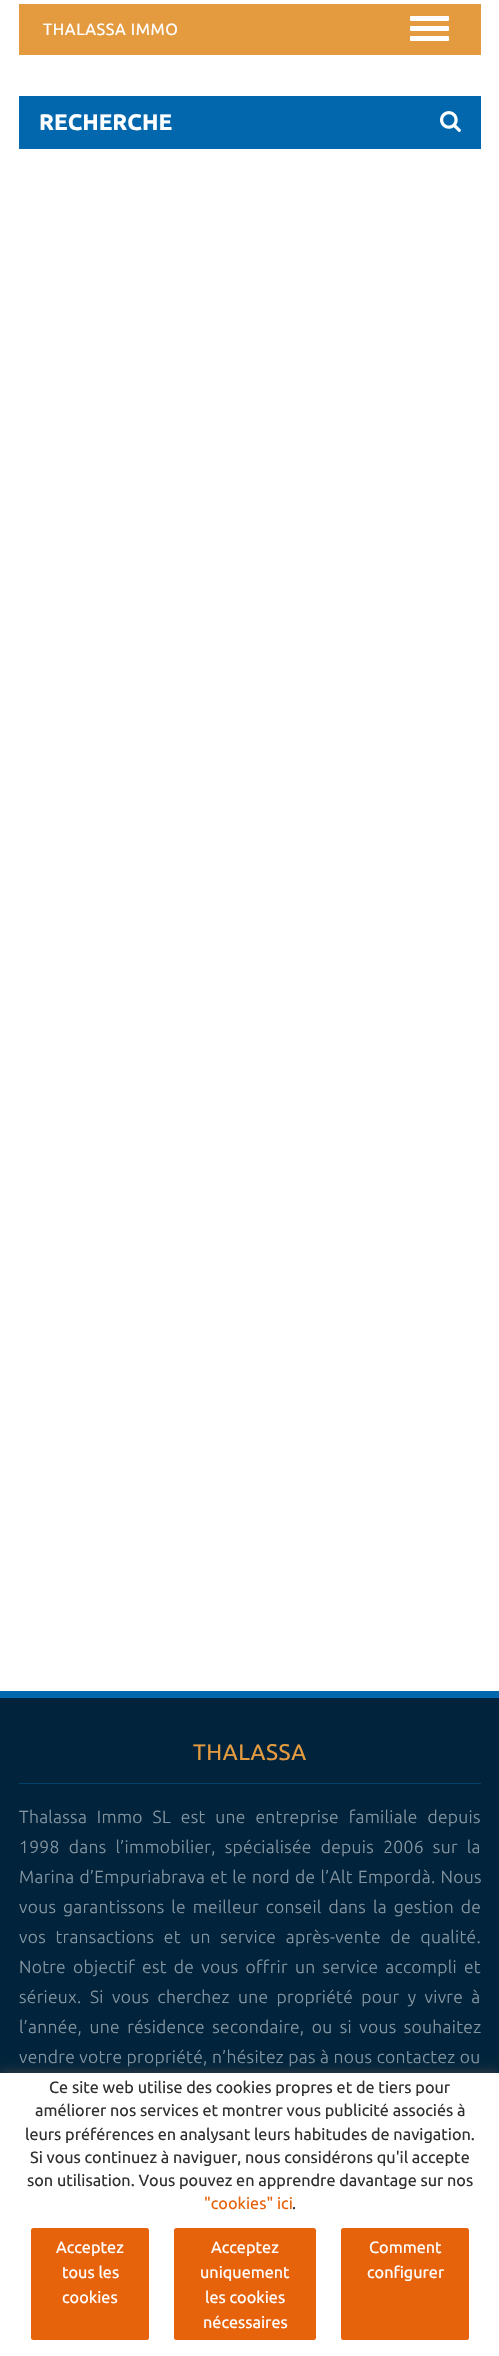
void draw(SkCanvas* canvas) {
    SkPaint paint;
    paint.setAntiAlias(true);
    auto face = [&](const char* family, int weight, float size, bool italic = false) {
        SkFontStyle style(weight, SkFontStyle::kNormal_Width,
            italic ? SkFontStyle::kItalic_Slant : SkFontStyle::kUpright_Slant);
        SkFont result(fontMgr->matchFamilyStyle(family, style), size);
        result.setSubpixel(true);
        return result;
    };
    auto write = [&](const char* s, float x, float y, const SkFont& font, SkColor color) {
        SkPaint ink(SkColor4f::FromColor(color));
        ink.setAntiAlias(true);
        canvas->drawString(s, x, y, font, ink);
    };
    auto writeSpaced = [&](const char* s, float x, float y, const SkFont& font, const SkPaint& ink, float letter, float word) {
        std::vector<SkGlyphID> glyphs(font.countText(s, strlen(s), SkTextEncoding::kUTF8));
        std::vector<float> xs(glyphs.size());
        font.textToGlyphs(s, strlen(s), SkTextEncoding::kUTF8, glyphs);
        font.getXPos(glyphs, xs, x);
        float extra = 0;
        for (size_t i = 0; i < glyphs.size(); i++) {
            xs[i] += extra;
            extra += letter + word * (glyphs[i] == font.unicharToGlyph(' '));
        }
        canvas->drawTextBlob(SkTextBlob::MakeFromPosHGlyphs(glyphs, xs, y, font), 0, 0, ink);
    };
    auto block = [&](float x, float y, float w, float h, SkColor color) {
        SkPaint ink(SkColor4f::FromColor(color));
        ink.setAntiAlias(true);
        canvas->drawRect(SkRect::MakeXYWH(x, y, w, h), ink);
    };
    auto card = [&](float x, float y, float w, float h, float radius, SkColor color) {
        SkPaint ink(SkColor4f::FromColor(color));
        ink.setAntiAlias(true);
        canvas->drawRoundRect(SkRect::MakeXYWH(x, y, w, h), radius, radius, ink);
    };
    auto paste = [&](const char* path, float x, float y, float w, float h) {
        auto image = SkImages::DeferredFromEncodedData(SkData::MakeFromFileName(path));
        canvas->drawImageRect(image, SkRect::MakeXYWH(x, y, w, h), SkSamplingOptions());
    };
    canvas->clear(SK_ColorWHITE);
    block(19, 4, 462, 51, SkColorSetRGB(228, 155, 64));
    auto kFont1 = face("Ubuntu", 400, 16.25f);
    paint.setColor(SK_ColorWHITE);
    writeSpaced("THALASSA IMMO", 43, 35, kFont1, paint, 0.6f, 0);
    card(410, 16, 39, 5, 1, SK_ColorWHITE);
    card(410, 26, 39, 5, 1, SK_ColorWHITE);
    card(410, 36, 39, 5, 1, SK_ColorWHITE);
    block(19, 96, 462, 53, SkColorSetRGB(2, 103, 173));
    auto kFont2 = face("Ubuntu", 700, 22.5f);
    write("RECHERCHE", 39, 130, kFont2, SK_ColorWHITE);
    paste("pic1.png", 440, 111, 21, 21);
    block(0, 1698, 499, 375, SkColorSetRGB(1, 36, 60));
    block(0, 1691, 499, 7, SkColorSetRGB(2, 103, 173));
    block(19, 1783, 462, 1, SkColorSetRGB(1, 65, 109));
    auto kFont3 = face("Ubuntu", 400, 22.5f);
    paint.setColor(SkColorSetRGB(228, 155, 64));
    writeSpaced("THALASSA", 193, 1760, kFont3, paint, 0.6f, 0);
    auto kFont4 = face("Ubuntu", 300, 17.5f);
    paint.setColor(SkColorSetRGB(133, 150, 162));
    writeSpaced("Thalassa Immo SL est une entreprise familiale depuis", 19, 1823, kFont4, paint, 0.3f, 5.5f);
    writeSpaced("1998 dans l’immobilier, spécialisée depuis 2006 sur la", 19, 1853, kFont4, paint, 0.3f, 4.75f);
    writeSpaced("Marina d’Empuriabrava et le nord de l’Alt Empordà. Nous", 19, 1883, kFont4, paint, 0.3f, 0.75f);
    writeSpaced("vous garantissons le meilleur conseil dans la gestion de", 19, 1913, kFont4, paint, 0.3f, 2.5f);
    writeSpaced("vos transactions et un service après-vente de qualité.", 19, 1943, kFont4, paint, 0.3f, 5.25f);
    writeSpaced("Notre objectif est de vous offrir un service accompli et", 19, 1973, kFont4, paint, 0.3f, 2.75f);
    writeSpaced("sérieux. Si vous cherchez une propriété pour y vivre à", 19, 2003, kFont4, paint, 0.3f, 4);
    writeSpaced("l’année, une résidence secondaire, ou si vous souhaitez", 19, 2033, kFont4, paint, 0.3f, 3);
    writeSpaced("vendre votre propriété, n’hésitez pas à nous contactez ou", 19, 2063, kFont4, paint, 0.3f, 0);
    paint.setColor(SkColorSetRGB(68, 68, 68));
    paint.setMaskFilter(SkMaskFilter::MakeBlur(kNormal_SkBlurStyle, 6));
    canvas->drawRect(SkRect::MakeXYWH(0, 2073, 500, 283), paint);
    paint.setMaskFilter(nullptr);
    block(0, 2073, 499, 283, SK_ColorWHITE);
    write("Ce site web utilise des cookies propres et de tiers pour", 49, 2093, kFont1, SkColorSetRGB(49, 49, 49));
    write("améliorer nos services et montrer vous publicité associés à", 35, 2116, kFont1, SkColorSetRGB(49, 49, 49));
    write("leurs préférences en analysant leurs habitudes de navigation.", 25, 2140, kFont1, SkColorSetRGB(49, 49, 49));
    write("Si vous continuez à naviguer, nous considérons qu'il accepte", 30, 2163, kFont1, SkColorSetRGB(49, 49, 49));
    write("son utilisation. Vous pouvez en apprendre davantage sur nos", 27, 2186, kFont1, SkColorSetRGB(49, 49, 49));
    write("\"cookies\" ici", 204, 2209, kFont1, SkColorSetRGB(231, 99, 11));
    write(".", 292, 2209, kFont1, SkColorSetRGB(49, 49, 49));
    card(31, 2228, 118, 112, 2.5f, SkColorSetRGB(231, 99, 11));
    write("Acceptez", 56, 2253, kFont1, SK_ColorWHITE);
    write("tous les", 62, 2278, kFont1, SK_ColorWHITE);
    write("cookies", 62, 2303, kFont1, SK_ColorWHITE);
    card(174, 2228, 142, 112, 2.5f, SkColorSetRGB(231, 99, 11));
    write("Acceptez", 211, 2253, kFont1, SK_ColorWHITE);
    write("uniquement", 200, 2278, kFont1, SK_ColorWHITE);
    write("les cookies", 205, 2303, kFont1, SK_ColorWHITE);
    write("nécessaires", 203, 2328, kFont1, SK_ColorWHITE);
    card(341, 2228, 128, 112, 2.5f, SkColorSetRGB(231, 99, 11));
    write("Comment", 369, 2253, kFont1, SK_ColorWHITE);
    write("configurer", 367, 2278, kFont1, SK_ColorWHITE);
}
